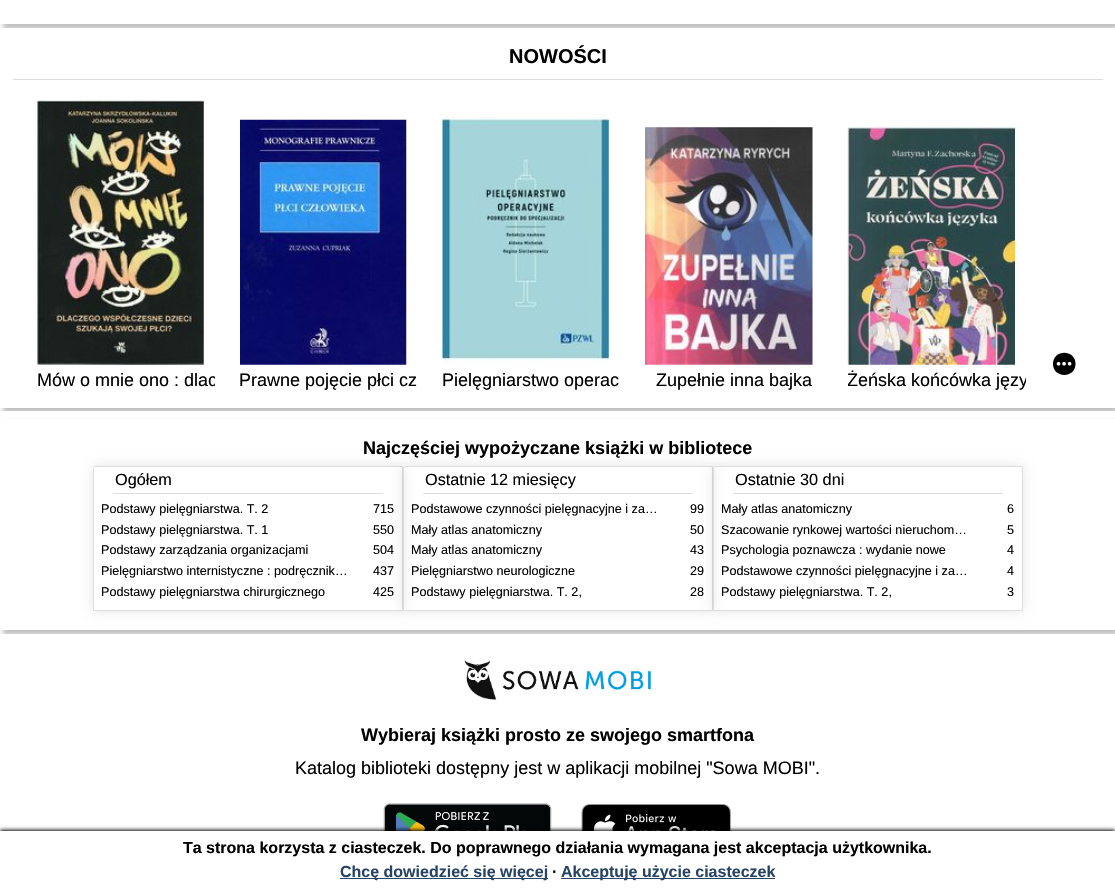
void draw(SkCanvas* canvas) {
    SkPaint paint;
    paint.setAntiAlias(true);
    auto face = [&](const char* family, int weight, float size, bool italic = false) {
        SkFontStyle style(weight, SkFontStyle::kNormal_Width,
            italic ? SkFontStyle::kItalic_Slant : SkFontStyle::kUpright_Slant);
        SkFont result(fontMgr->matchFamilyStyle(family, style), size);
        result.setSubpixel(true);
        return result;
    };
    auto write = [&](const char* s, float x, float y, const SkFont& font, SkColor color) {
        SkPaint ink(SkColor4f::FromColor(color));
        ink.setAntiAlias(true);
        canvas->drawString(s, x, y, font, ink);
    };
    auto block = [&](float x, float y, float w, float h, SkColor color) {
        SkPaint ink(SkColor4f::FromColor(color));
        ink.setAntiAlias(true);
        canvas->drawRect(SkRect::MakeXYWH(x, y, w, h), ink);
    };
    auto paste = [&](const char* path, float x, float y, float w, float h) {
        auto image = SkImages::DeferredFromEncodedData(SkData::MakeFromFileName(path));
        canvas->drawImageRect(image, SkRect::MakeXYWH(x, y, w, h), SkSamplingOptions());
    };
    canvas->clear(SK_ColorWHITE);
    canvas->save();
    canvas->clipPath(SkPathBuilder(SkPathFillType::kEvenOdd).moveTo(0, 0).lineTo(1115, 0).lineTo(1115, 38).lineTo(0, 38).close().moveTo(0, -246).lineTo(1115, -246).lineTo(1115, 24).lineTo(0, 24).close().detach(), true);
    paint.setColor(SkColorSetARGB(64, 0, 0, 0));
    paint.setMaskFilter(SkMaskFilter::MakeBlur(kNormal_SkBlurStyle, 2.5f));
    canvas->drawRect(SkRect::MakeXYWH(3, -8, 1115, 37), paint);
    paint.setMaskFilter(nullptr);
    canvas->restore();
    block(1, 23, 1114, 1, SkColorSetARGB(242, 255, 255, 255));
    canvas->save();
    canvas->clipPath(SkPathBuilder(SkPathFillType::kEvenOdd).moveTo(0, 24).lineTo(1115, 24).lineTo(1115, 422).lineTo(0, 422).close().moveTo(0, 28).lineTo(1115, 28).lineTo(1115, 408).lineTo(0, 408).close().detach(), true);
    paint.setMaskFilter(SkMaskFilter::MakeBlur(kNormal_SkBlurStyle, 2.5f));
    canvas->drawRect(SkRect::MakeXYWH(3, 33, 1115, 380), paint);
    paint.setMaskFilter(nullptr);
    canvas->restore();
    block(0, 28, 1115, 380, SkColorSetARGB(242, 255, 255, 255));
    block(13, 79, 1090, 1, SkColorSetRGB(221, 221, 221));
    auto kFont1 = face("Liberation Sans", 700, 20);
    write("NOWOŚCI", 509, 63, kFont1, SK_ColorBLACK);
    paint.setColor(SK_ColorBLACK);
    canvas->drawPath(SkPathBuilder().moveTo(1053, 364).cubicTo(1053, 349, 1075.5f, 349, 1075.5f, 364).cubicTo(1075.5f, 378.5f, 1053, 378.5f, 1053, 364).close().detach(), paint);
    paste("pic1.png", 1056, 361, 16, 5);
    paste("pic2.png", 36, 100, 168, 265);
    canvas->save();
    canvas->clipRect(SkRect::MakeXYWH(36, 369, 179, 26));
    auto kFont2 = face("Liberation Sans", 400, 18);
    write("Mów o mnie ono : dlac", 37, 386, kFont2, SK_ColorBLACK);
    canvas->restore();
    paste("pic3.png", 240, 119, 167, 246);
    write("Prawne pojęcie płci cz", 239, 386, kFont2, SK_ColorBLACK);
    paste("pic4.png", 442, 113, 167, 251);
    write("Pielęgniarstwo operac", 442, 386, kFont2, SK_ColorBLACK);
    paste("pic5.png", 645, 127, 168, 238);
    write("Zupełnie inna bajka", 656, 386, kFont2, SK_ColorBLACK);
    paste("pic6.png", 847, 127, 168, 238);
    canvas->save();
    canvas->clipRect(SkRect::MakeXYWH(848, 369, 178, 26));
    write("Żeńska końcówka języ", 847, 386, kFont2, SK_ColorBLACK);
    canvas->restore();
    canvas->save();
    canvas->clipRect(SkRect::MakeXYWH(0, 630, 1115, 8));
    paint.setColor(SkColorSetARGB(64, 0, 0, 0));
    paint.setMaskFilter(SkMaskFilter::MakeBlur(kNormal_SkBlurStyle, 2.5f));
    canvas->drawRect(SkRect::MakeXYWH(3, 416, 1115, 219), paint);
    paint.setMaskFilter(nullptr);
    canvas->restore();
    block(0, 411, 1115, 6, SkColorSetARGB(242, 255, 255, 255));
    auto kFont3 = face("Liberation Sans", 700, 18);
    write("Najczęściej wypożyczane książki w bibliotece", 363, 454, kFont3, SK_ColorBLACK);
    canvas->save();
    canvas->clipPath(SkPathBuilder(SkPathFillType::kEvenOdd).moveTo(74, 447).lineTo(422, 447).lineTo(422, 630).lineTo(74, 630).close().moveTo(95.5f, 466).lineTo(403, 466).lineTo(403, 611).lineTo(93, 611).lineTo(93, 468.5f).cubicTo(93, 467, 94, 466, 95.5f, 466).close().detach(), true);
    paint.setColor(SkColorSetARGB(26, 0, 0, 0));
    paint.setMaskFilter(SkMaskFilter::MakeBlur(kNormal_SkBlurStyle, 6));
    canvas->drawRoundRect(SkRect::MakeXYWH(93, 466, 310, 145), 2.5f, 2.5f, paint);
    paint.setMaskFilter(nullptr);
    canvas->restore();
    paint.setStyle(SkPaint::kStroke_Style);
    paint.setStrokeWidth(1);
    paint.setColor(SkColorSetRGB(221, 221, 221));
    canvas->drawPath(SkPathBuilder().moveTo(95.5f, 466.5f).lineTo(402.5f, 466.5f).lineTo(402.5f, 610.5f).lineTo(93.5f, 610.5f).lineTo(93.5f, 468.5f).cubicTo(93.5f, 467.5f, 94.5f, 466.5f, 95.5f, 466.5f).close().detach(), paint);
    block(113, 493, 270, 1, SkColorSetRGB(221, 221, 221));
    auto kFont4 = face("Liberation Sans", 400, 16.25f);
    write("Ogółem", 115, 485, kFont4, SK_ColorBLACK);
    auto kFont5 = face("Liberation Sans", 400, 12.6f);
    write("Podstawy pielęgniarstwa. T. 2", 101, 513, kFont5, SK_ColorBLACK);
    canvas->save();
    canvas->clipPath(SkPathBuilder(SkPathFillType::kEvenOdd).moveTo(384, 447).lineTo(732, 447).lineTo(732, 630).lineTo(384, 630).close().moveTo(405.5f, 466).lineTo(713, 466).lineTo(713, 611).lineTo(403, 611).lineTo(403, 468.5f).cubicTo(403, 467, 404, 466, 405.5f, 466).close().detach(), true);
    paint.setStyle(SkPaint::kFill_Style);
    paint.setColor(SkColorSetARGB(26, 0, 0, 0));
    paint.setMaskFilter(SkMaskFilter::MakeBlur(kNormal_SkBlurStyle, 6));
    canvas->drawRoundRect(SkRect::MakeXYWH(403, 466, 310, 145), 2.5f, 2.5f, paint);
    paint.setMaskFilter(nullptr);
    canvas->restore();
    write("715", 373, 513, kFont5, SK_ColorBLACK);
    write("Podstawy pielęgniarstwa. T. 1", 101, 534, kFont5, SK_ColorBLACK);
    write("550", 373, 534, kFont5, SK_ColorBLACK);
    write("Podstawy zarządzania organizacjami", 101, 554, kFont5, SK_ColorBLACK);
    write("504", 373, 554, kFont5, SK_ColorBLACK);
    write("Pielęgniarstwo internistyczne : podręcznik…", 101, 575, kFont5, SK_ColorBLACK);
    write("437", 373, 575, kFont5, SK_ColorBLACK);
    write("Podstawy pielęgniarstwa chirurgicznego", 101, 596, kFont5, SK_ColorBLACK);
    write("425", 373, 596, kFont5, SK_ColorBLACK);
    paint.setStyle(SkPaint::kStroke_Style);
    paint.setColor(SkColorSetRGB(221, 221, 221));
    canvas->drawPath(SkPathBuilder().moveTo(405.5f, 466.5f).lineTo(712.5f, 466.5f).lineTo(712.5f, 610.5f).lineTo(403.5f, 610.5f).lineTo(403.5f, 468.5f).cubicTo(403.5f, 467.5f, 404.5f, 466.5f, 405.5f, 466.5f).close().detach(), paint);
    block(423, 493, 270, 1, SkColorSetRGB(221, 221, 221));
    write("Ostatnie 12 miesięcy", 425, 485, kFont4, SK_ColorBLACK);
    write("Podstawowe czynności pielęgnacyjne i za…", 411, 513, kFont5, SK_ColorBLACK);
    canvas->save();
    canvas->clipPath(SkPathBuilder(SkPathFillType::kEvenOdd).moveTo(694, 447).lineTo(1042, 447).lineTo(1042, 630).lineTo(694, 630).close().moveTo(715.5f, 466).lineTo(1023, 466).lineTo(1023, 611).lineTo(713, 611).lineTo(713, 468.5f).cubicTo(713, 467, 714, 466, 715.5f, 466).close().detach(), true);
    paint.setStyle(SkPaint::kFill_Style);
    paint.setColor(SkColorSetARGB(26, 0, 0, 0));
    paint.setMaskFilter(SkMaskFilter::MakeBlur(kNormal_SkBlurStyle, 6));
    canvas->drawRoundRect(SkRect::MakeXYWH(713, 466, 310, 145), 2.5f, 2.5f, paint);
    paint.setMaskFilter(nullptr);
    canvas->restore();
    write("99", 690, 513, kFont5, SK_ColorBLACK);
    write("Mały atlas anatomiczny", 411, 534, kFont5, SK_ColorBLACK);
    write("50", 690, 534, kFont5, SK_ColorBLACK);
    write("Mały atlas anatomiczny", 411, 554, kFont5, SK_ColorBLACK);
    write("43", 690, 554, kFont5, SK_ColorBLACK);
    write("Pielęgniarstwo neurologiczne", 411, 575, kFont5, SK_ColorBLACK);
    write("29", 690, 575, kFont5, SK_ColorBLACK);
    write("Podstawy pielęgniarstwa. T. 2,", 411, 596, kFont5, SK_ColorBLACK);
    write("28", 690, 596, kFont5, SK_ColorBLACK);
    paint.setStyle(SkPaint::kStroke_Style);
    paint.setColor(SkColorSetRGB(221, 221, 221));
    canvas->drawPath(SkPathBuilder().moveTo(715.5f, 466.5f).lineTo(1022.5f, 466.5f).lineTo(1022.5f, 610.5f).lineTo(713.5f, 610.5f).lineTo(713.5f, 468.5f).cubicTo(713.5f, 467.5f, 714.5f, 466.5f, 715.5f, 466.5f).close().detach(), paint);
    block(733, 493, 270, 1, SkColorSetRGB(221, 221, 221));
    write("Ostatnie 30 dni", 735, 485, kFont4, SK_ColorBLACK);
    write("Mały atlas anatomiczny", 721, 513, kFont5, SK_ColorBLACK);
    write("6", 1007, 513, kFont5, SK_ColorBLACK);
    write("Szacowanie rynkowej wartości nieruchom…", 721, 534, kFont5, SK_ColorBLACK);
    write("5", 1007, 534, kFont5, SK_ColorBLACK);
    write("Psychologia poznawcza : wydanie nowe", 721, 554, kFont5, SK_ColorBLACK);
    write("4", 1007, 554, kFont5, SK_ColorBLACK);
    write("Podstawowe czynności pielęgnacyjne i za…", 721, 575, kFont5, SK_ColorBLACK);
    write("4", 1007, 575, kFont5, SK_ColorBLACK);
    write("Podstawy pielęgniarstwa. T. 2,", 721, 596, kFont5, SK_ColorBLACK);
    write("3", 1007, 596, kFont5, SK_ColorBLACK);
    block(0, 634, 1115, 5, SkColorSetARGB(242, 255, 255, 255));
    paste("pic7.png", 464, 660, 187, 40);
    write("Wybieraj książki prosto ze swojego smartfona", 361, 741, kFont3, SK_ColorBLACK);
    write("Katalog biblioteki dostępny jest w aplikacji mobilnej \"Sowa MOBI\".", 295, 774, kFont2, SK_ColorBLACK);
    paste("pic8.png", 383, 803, 169, 28);
    paste("pic9.png", 581, 804, 150, 27);
    paint.setStyle(SkPaint::kFill_Style);
    paint.setColor(SK_ColorBLACK);
    paint.setMaskFilter(SkMaskFilter::MakeBlur(kNormal_SkBlurStyle, 2));
    canvas->drawRect(SkRect::MakeXYWH(0, 830, 1115, 61), paint);
    paint.setMaskFilter(nullptr);
    block(0, 831, 1115, 61, SK_ColorWHITE);
    auto kFont6 = face("Liberation Sans", 700, 16);
    write("Ta strona korzysta z ciasteczek. Do poprawnego działania wymagana jest akceptacja użytkownika.", 183, 853, kFont6, SK_ColorBLACK);
    block(340, 878, 208, 1, SkColorSetRGB(39, 68, 102));
    write("Chcę dowiedzieć się więcej", 340, 877, kFont6, SkColorSetRGB(39, 68, 102));
    write("∙", 552, 877, kFont6, SK_ColorBLACK);
    block(561, 878, 214, 1, SkColorSetRGB(39, 68, 102));
    write("Akceptuję użycie ciasteczek", 561, 877, kFont6, SkColorSetRGB(39, 68, 102));
}
